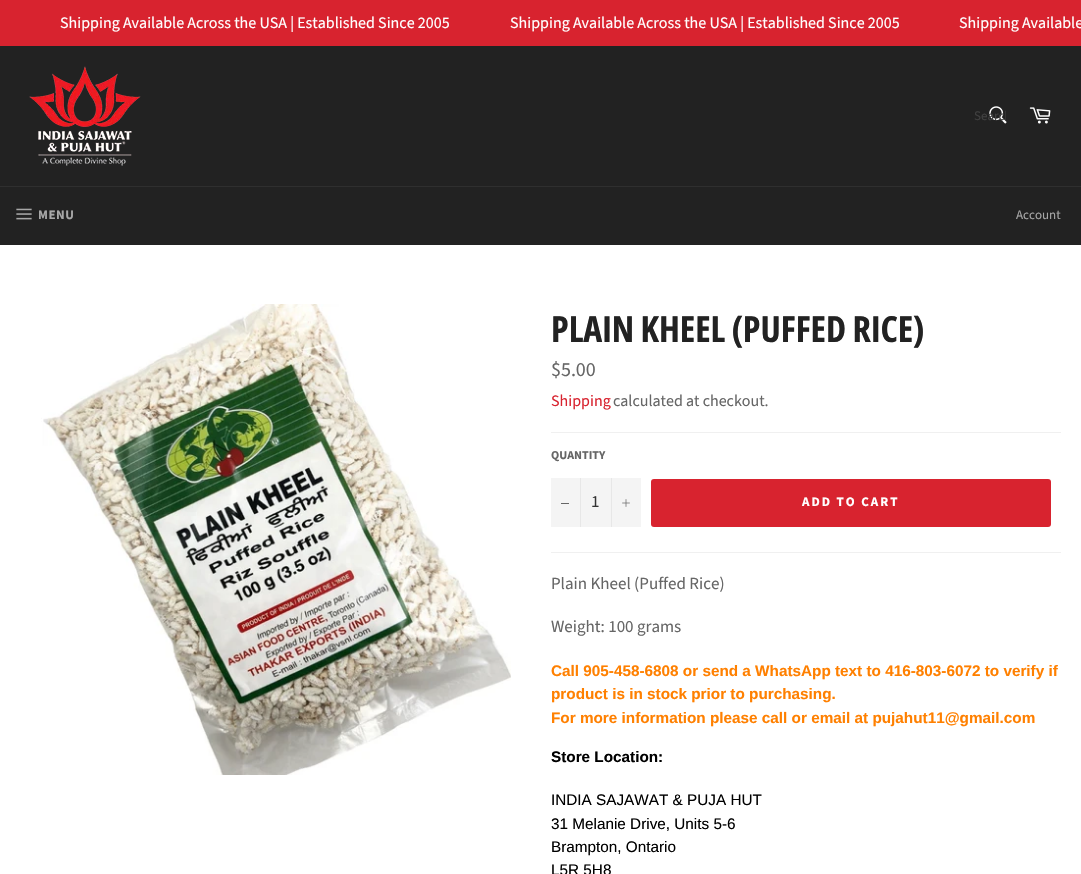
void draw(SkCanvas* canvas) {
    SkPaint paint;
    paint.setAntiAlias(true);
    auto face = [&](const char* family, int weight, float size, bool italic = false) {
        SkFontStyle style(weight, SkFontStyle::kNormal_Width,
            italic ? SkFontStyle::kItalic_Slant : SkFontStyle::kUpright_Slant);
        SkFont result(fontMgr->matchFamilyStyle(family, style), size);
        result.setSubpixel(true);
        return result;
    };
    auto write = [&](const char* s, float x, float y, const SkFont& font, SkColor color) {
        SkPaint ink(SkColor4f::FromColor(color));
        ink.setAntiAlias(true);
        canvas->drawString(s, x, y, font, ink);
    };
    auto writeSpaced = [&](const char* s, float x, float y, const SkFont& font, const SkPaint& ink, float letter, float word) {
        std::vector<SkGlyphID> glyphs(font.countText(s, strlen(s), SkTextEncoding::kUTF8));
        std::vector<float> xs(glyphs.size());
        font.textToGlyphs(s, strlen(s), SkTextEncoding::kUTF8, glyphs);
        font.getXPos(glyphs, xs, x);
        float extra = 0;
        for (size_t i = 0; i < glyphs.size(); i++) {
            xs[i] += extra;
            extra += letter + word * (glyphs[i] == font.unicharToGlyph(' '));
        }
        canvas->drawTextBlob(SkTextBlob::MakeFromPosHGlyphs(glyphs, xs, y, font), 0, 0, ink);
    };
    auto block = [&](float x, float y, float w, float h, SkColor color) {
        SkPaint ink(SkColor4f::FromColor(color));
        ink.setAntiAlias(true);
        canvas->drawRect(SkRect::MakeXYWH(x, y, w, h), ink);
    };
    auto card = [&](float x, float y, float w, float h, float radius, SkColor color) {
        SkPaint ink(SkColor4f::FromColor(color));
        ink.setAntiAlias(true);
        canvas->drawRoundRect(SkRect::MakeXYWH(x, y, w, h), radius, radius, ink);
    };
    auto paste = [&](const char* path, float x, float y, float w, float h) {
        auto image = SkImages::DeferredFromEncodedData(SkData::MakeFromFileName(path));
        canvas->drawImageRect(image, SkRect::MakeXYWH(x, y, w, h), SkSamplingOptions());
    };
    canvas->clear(SkColorSetRGB(216, 35, 47));
    auto kFont1 = face("Source Sans Pro", 400, 16);
    write("Shipping Available Across the USA | Established Since 2005", 60, 28, kFont1, SK_ColorWHITE);
    write("Shipping Available Across the USA | Established Since 2005", 510, 28, kFont1, SK_ColorWHITE);
    write("Shipping Available", 959, 28, kFont1, SK_ColorWHITE);
    block(0, 46, 1081, 140, SkColorSetRGB(34, 34, 34));
    paste("pic1.png", 29, 66, 112, 100);
    paste("pic2.png", 989, 106, 18, 18);
    canvas->save();
    canvas->clipRect(SkRect::MakeXYWH(974, 107, 32, 18));
    auto kFont2 = face("Source Sans Pro", 400, 13);
    write("Search", 974, 120, kFont2, SkColorSetRGB(64, 64, 64));
    canvas->restore();
    paste("pic3.png", 1029, 107, 22, 17);
    block(0, 187, 1081, 58, SkColorSetRGB(34, 34, 34));
    block(0, 186, 1081, 1, SkColorSetRGB(47, 47, 47));
    paste("pic4.png", 16, 208, 16, 12);
    auto kFont3 = face("Source Sans Pro", 700, 13);
    paint.setColor(SkColorSetRGB(167, 167, 167));
    writeSpaced("MENU", 38, 219, kFont3, paint, 0.5f, 0);
    write("Account", 1016, 219, kFont2, SkColorSetRGB(167, 167, 167));
    block(0, 245, 1081, 629, SK_ColorWHITE);
    paste("pic5.png", 41, 304, 470, 471);
    auto kFont4 = face("Open Sans Condensed", 700, 36);
    write("PLAIN KHEEL (PUFFED RICE)", 551, 342, kFont4, SkColorSetRGB(34, 34, 34));
    auto kFont5 = face("Source Sans Pro", 400, 20);
    write("$5.00", 551, 376, kFont5, SkColorSetRGB(102, 102, 102));
    write("Shipping", 551, 406, kFont1, SkColorSetRGB(216, 35, 47));
    write("calculated at checkout.", 613, 406, kFont1, SkColorSetRGB(102, 102, 102));
    block(551, 432, 510, 1, SkColorSetRGB(240, 240, 240));
    auto kFont6 = face("Source Sans Pro", 700, 12);
    write("QUANTITY", 551, 459, kFont6, SkColorSetRGB(102, 102, 102));
    block(551, 478, 90, 49, SkColorSetRGB(244, 244, 244));
    block(580, 478, 1, 49, SkColorSetRGB(231, 231, 231));
    block(561, 503, 8, 1, SkColorSetRGB(102, 102, 102));
    auto kFont7 = face("Source Sans Pro", 400, 17);
    write("1", 591, 507, kFont7, SkColorSetRGB(51, 51, 51));
    block(611, 478, 1, 49, SkColorSetRGB(231, 231, 231));
    paste("pic6.png", 622, 499, 8, 8);
    card(651, 479, 400, 48, 3, SkColorSetRGB(216, 35, 47));
    paint.setColor(SK_ColorWHITE);
    writeSpaced("ADD TO CART", 802, 506, kFont3, paint, 2, 0);
    block(551, 552, 510, 1, SkColorSetRGB(240, 240, 240));
    write("Plain Kheel (Puffed Rice)", 551, 589, kFont7, SkColorSetRGB(102, 102, 102));
    write("Weight: 100 grams", 551, 632, kFont7, SkColorSetRGB(102, 102, 102));
    auto kFont8 = face("Liberation Sans", 700, 15.3f);
    write("Call 905-458-6808 or send a WhatsApp text to 416-803-6072 to verify if", 551, 676, kFont8, SkColorSetRGB(255, 128, 0));
    write("product is in stock prior to purchasing.", 551, 699, kFont8, SkColorSetRGB(255, 128, 0));
    write("For more information please call or email at pujahut11@gmail.com", 551, 723, kFont8, SkColorSetRGB(255, 128, 0));
    write("Store Location:", 551, 762, kFont8, SK_ColorBLACK);
    auto kFont9 = face("Liberation Sans", 400, 15.3f);
    write("INDIA SAJAWAT & PUJA HUT", 551, 805, kFont9, SK_ColorBLACK);
    write("31 Melanie Drive, Units 5-6", 551, 829, kFont9, SK_ColorBLACK);
    write("Brampton, Ontario", 551, 852, kFont9, SK_ColorBLACK);
    write("L5R 5H8", 551, 875, kFont9, SK_ColorBLACK);
}
